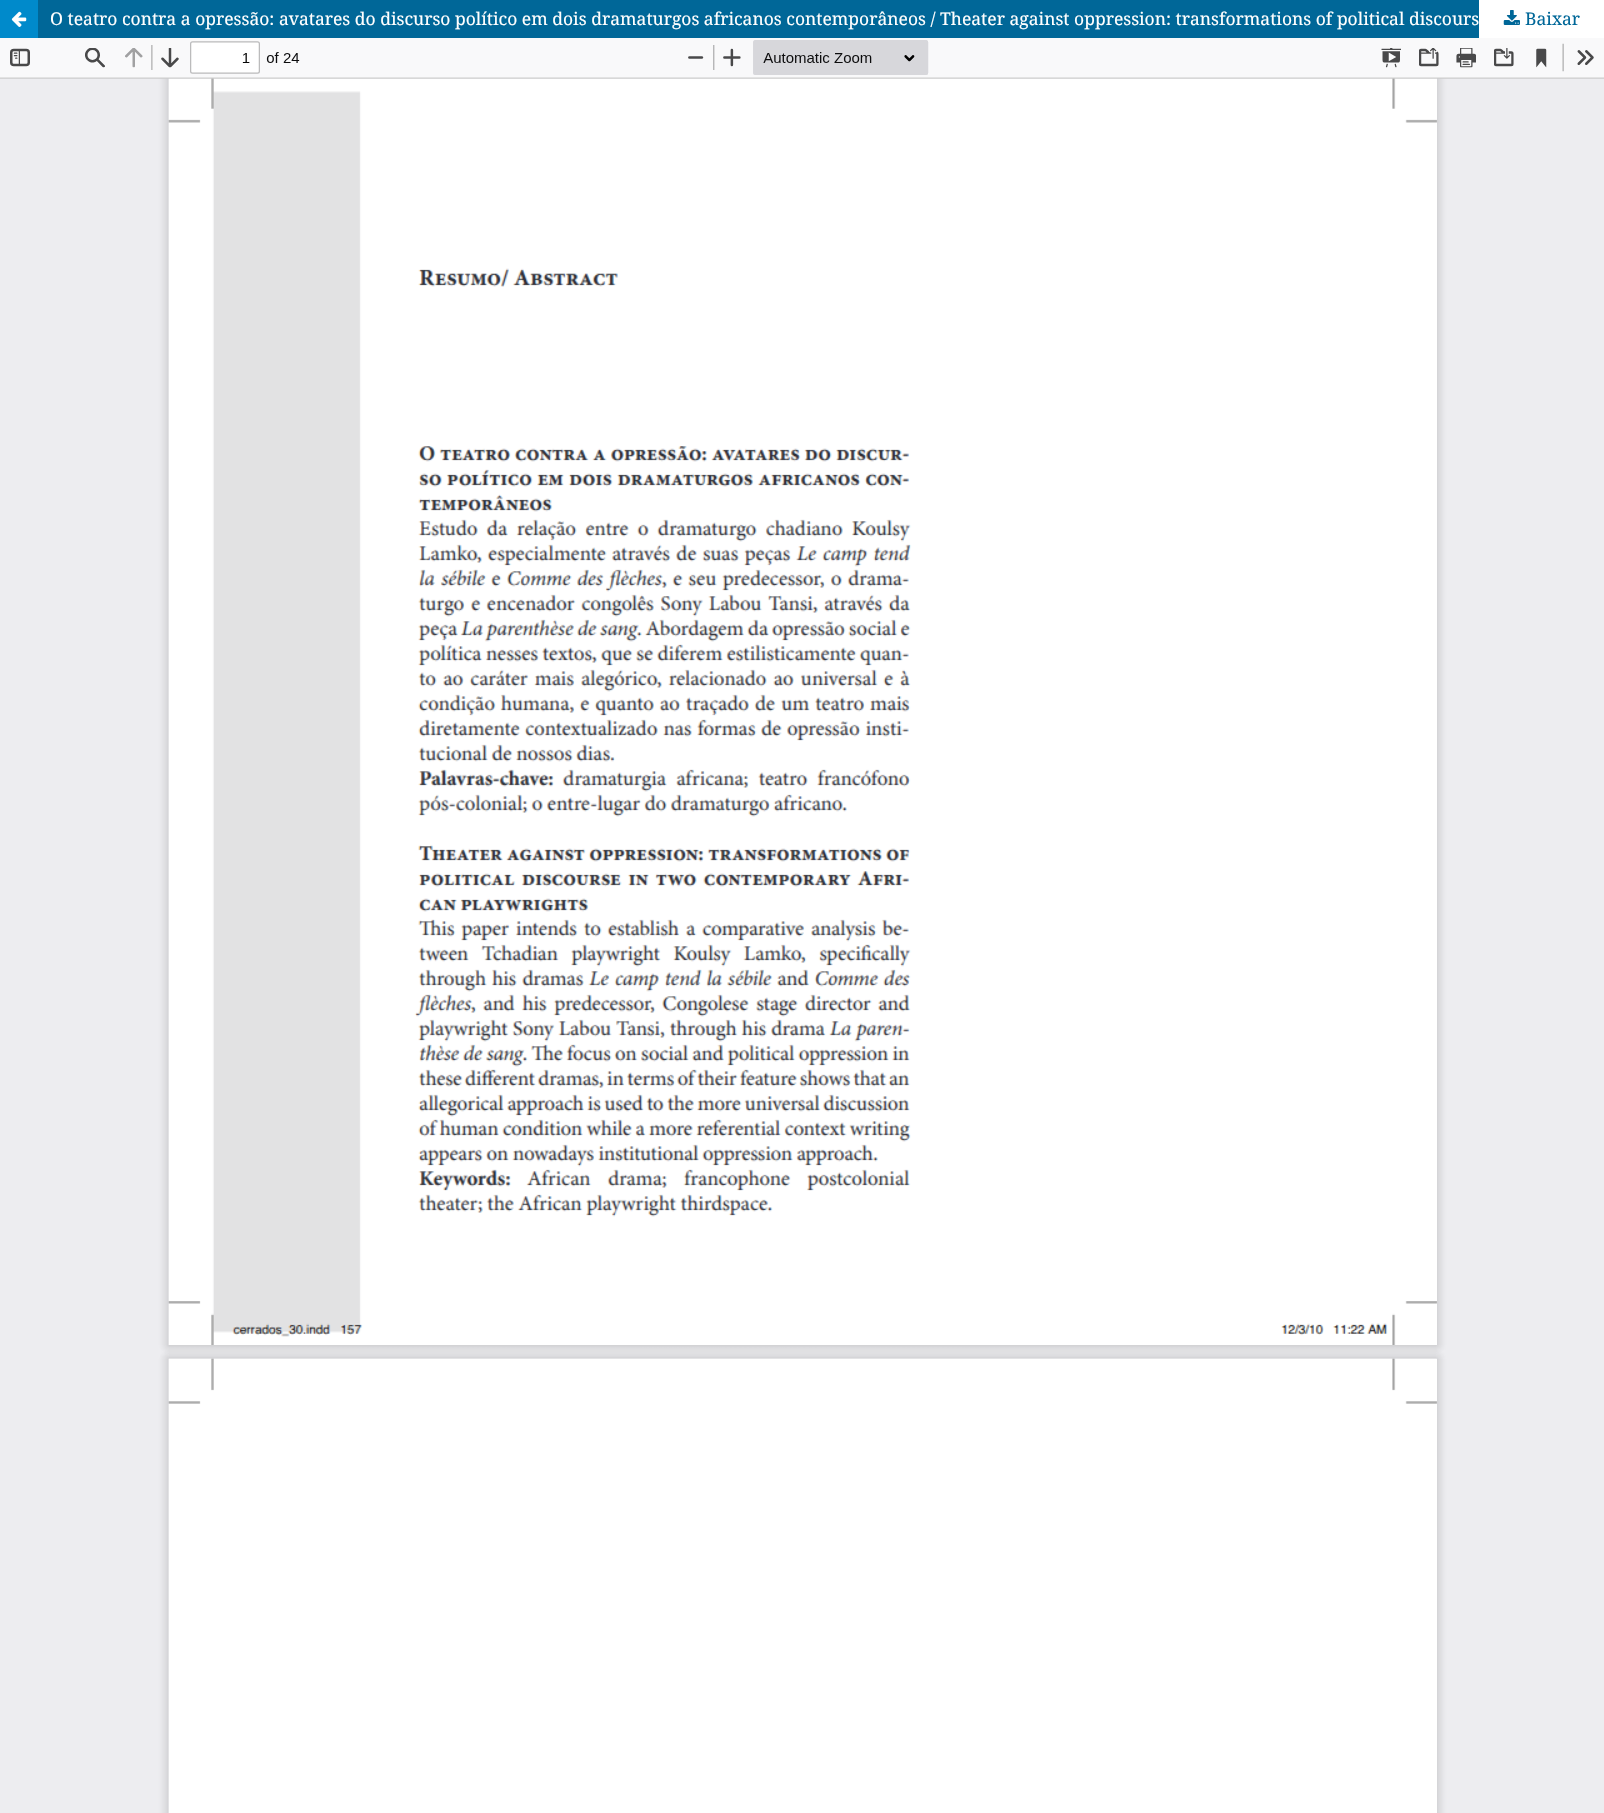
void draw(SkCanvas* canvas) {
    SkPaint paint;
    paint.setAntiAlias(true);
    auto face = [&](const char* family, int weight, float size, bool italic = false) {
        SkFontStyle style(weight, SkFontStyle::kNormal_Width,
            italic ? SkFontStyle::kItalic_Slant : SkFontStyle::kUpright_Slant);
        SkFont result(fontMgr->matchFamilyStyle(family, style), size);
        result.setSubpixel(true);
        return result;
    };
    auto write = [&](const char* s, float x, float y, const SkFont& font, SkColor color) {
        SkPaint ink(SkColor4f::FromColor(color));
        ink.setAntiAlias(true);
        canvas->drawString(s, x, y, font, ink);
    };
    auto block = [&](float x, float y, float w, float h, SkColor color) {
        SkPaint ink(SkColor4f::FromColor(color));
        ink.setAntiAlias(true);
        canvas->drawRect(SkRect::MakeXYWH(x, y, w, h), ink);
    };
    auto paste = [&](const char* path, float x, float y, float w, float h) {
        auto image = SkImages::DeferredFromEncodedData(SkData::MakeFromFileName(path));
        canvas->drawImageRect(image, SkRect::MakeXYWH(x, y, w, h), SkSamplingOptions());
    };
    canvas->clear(SK_ColorWHITE);
    block(38, 0, 1441, 38, SkColorSetRGB(0, 103, 152));
    block(0, 0, 38, 38, SkColorSetRGB(0, 138, 203));
    paste("pic1.png", 11, 11, 16, 16);
    auto kFont1 = face("Noto Serif", 400, 17.5f);
    write("O teatro contra a opressão: avatares do discurso político em dois dramaturgos africanos contemporâneos / Theater against oppression: transformations of political discours", 50, 25, kFont1, SK_ColorWHITE);
    paste("pic2.png", 1503, 10, 17, 15);
    write("Baixar", 1525, 25, kFont1, SkColorSetRGB(0, 103, 152));
    paste("pic3.png", 0, 38, 1604, 1775);
}
